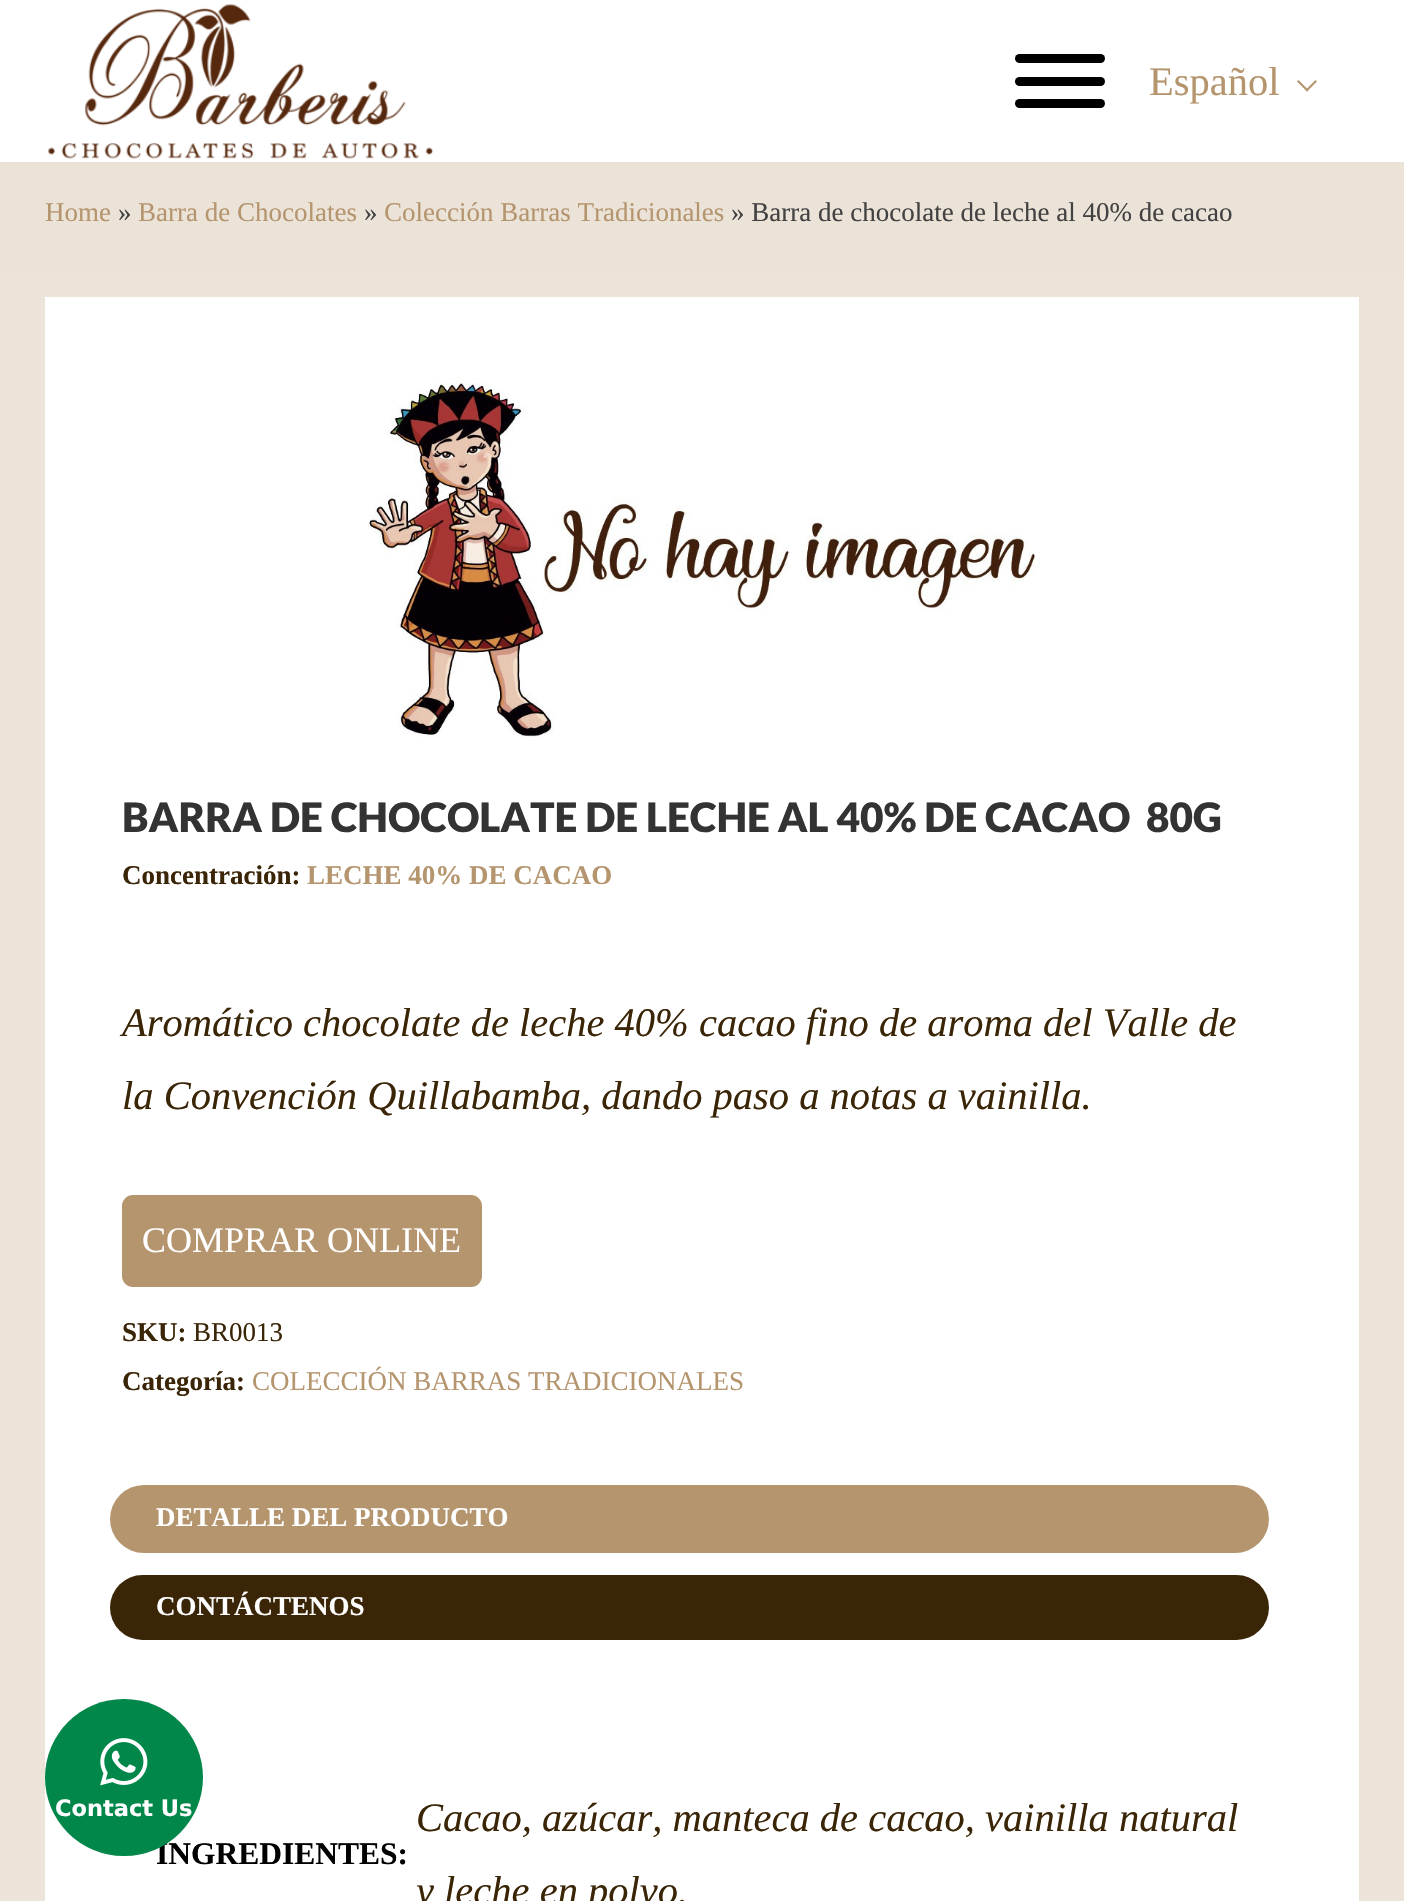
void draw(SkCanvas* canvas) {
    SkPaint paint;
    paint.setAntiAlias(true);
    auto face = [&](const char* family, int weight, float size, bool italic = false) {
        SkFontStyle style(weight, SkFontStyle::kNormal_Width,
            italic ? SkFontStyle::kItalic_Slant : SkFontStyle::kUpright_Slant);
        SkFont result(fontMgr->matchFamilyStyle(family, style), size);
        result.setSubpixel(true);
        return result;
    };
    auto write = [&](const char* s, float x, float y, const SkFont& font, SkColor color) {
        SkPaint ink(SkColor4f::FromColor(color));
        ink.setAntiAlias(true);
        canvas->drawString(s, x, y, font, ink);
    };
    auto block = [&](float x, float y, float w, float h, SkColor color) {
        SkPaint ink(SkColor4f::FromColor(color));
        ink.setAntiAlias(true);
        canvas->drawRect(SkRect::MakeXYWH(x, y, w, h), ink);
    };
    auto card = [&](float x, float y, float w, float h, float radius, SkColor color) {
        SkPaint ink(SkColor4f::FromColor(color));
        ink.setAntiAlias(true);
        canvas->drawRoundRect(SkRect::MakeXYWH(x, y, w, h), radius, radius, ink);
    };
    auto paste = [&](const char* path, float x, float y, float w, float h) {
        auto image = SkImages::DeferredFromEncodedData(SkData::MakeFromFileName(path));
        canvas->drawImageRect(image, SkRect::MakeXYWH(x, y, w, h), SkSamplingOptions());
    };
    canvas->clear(SK_ColorWHITE);
    paste("pic1.png", 48, 4, 386, 155);
    card(1015, 54, 90, 9, 4.5f, SK_ColorBLACK);
    card(1015, 77, 90, 9, 4.5f, SK_ColorBLACK);
    card(1015, 99, 90, 9, 4.5f, SK_ColorBLACK);
    auto kFont1 = face("Liberation Serif", 400, 40.5f);
    write("Español", 1149, 95, kFont1, SkColorSetRGB(181, 149, 110));
    paint.setColor(SkColorSetRGB(181, 149, 110));
    canvas->drawPath(SkPathBuilder().moveTo(1317, 81.5f).lineTo(1307, 91.5f).lineTo(1305.5f, 90).lineTo(1315.5f, 80).close().detach(), paint);
    canvas->drawPath(SkPathBuilder().moveTo(1308.5f, 90).lineTo(1307, 91.5f).lineTo(1297, 81.5f).lineTo(1298.5f, 80).close().detach(), paint);
    block(0, 162, 1404, 113, SkColorSetRGB(235, 227, 216));
    auto kFont2 = face("Liberation Serif", 400, 27);
    write("Home", 45, 221, kFont2, SkColorSetRGB(181, 149, 110));
    write("»", 118, 221, kFont2, SkColorSetRGB(66, 66, 66));
    write("Barra de Chocolates", 138, 221, kFont2, SkColorSetRGB(181, 149, 110));
    write("»", 364, 221, kFont2, SkColorSetRGB(66, 66, 66));
    write("Colección Barras Tradicionales", 384, 221, kFont2, SkColorSetRGB(181, 149, 110));
    write("» Barra de chocolate de leche al 40% de cacao", 731, 221, kFont2, SkColorSetRGB(66, 66, 66));
    block(0, 275, 1404, 1626, SkColorSetRGB(236, 227, 217));
    block(45, 297, 1314, 1604, SK_ColorWHITE);
    paste("pic2.png", 367, 377, 668, 363);
    auto kFont3 = face("Lato", 900, 40.5f);
    write("BARRA DE CHOCOLATE DE LECHE AL 40% DE CACAO", 122, 832, kFont3, SkColorSetRGB(51, 51, 51));
    write("80G", 1146, 832, kFont3, SkColorSetRGB(51, 51, 51));
    auto kFont4 = face("Liberation Serif", 700, 27);
    write("Concentración:", 122, 884, kFont4, SkColorSetRGB(58, 37, 7));
    write("LECHE 40% DE CACAO", 307, 884, kFont4, SkColorSetRGB(181, 149, 110));
    auto kFont5 = face("Liberation Serif", 400, 40.5f, true);
    write("Aromático chocolate de leche 40% cacao fino de aroma del Valle de", 122, 1036, kFont5, SkColorSetRGB(58, 37, 7));
    write("la Convención Quillabamba, dando paso a notas a vainilla.", 122, 1109, kFont5, SkColorSetRGB(58, 37, 7));
    canvas->drawRoundRect(SkRect::MakeXYWH(123, 1196, 358, 90), 10, 10, paint);
    paint.setStyle(SkPaint::kStroke_Style);
    paint.setStrokeWidth(2);
    canvas->drawRoundRect(SkRect::MakeXYWH(123, 1196, 358, 90), 10, 10, paint);
    auto kFont6 = face("Liberation Serif", 400, 36);
    write("COMPRAR ONLINE", 142, 1252, kFont6, SK_ColorWHITE);
    write("SKU:", 122, 1341, kFont4, SkColorSetRGB(58, 37, 7));
    write("BR0013", 193, 1341, kFont2, SkColorSetRGB(58, 37, 7));
    write("Categoría:", 122, 1390, kFont4, SkColorSetRGB(58, 37, 7));
    write("COLECCIÓN BARRAS TRADICIONALES", 252, 1390, kFont2, SkColorSetRGB(181, 149, 110));
    card(110, 1485, 1159, 68, 34, SkColorSetRGB(181, 149, 110));
    write("DETALLE DEL PRODUCTO", 156, 1526, kFont4, SK_ColorWHITE);
    card(110, 1575, 1159, 65, 32.5f, SkColorSetRGB(58, 37, 7));
    write("CONTÁCTENOS", 156, 1615, kFont4, SK_ColorWHITE);
    auto kFont7 = face("Liberation Serif", 700, 31.5f);
    write("INGREDIENTES:", 156, 1864, kFont7, SK_ColorBLACK);
    write("Cacao, azúcar, manteca de cacao, vainilla natural", 416, 1831, kFont5, SkColorSetRGB(58, 37, 7));
    write("y leche en polvo.", 416, 1904, kFont5, SkColorSetRGB(58, 37, 7));
    card(45, 1699, 158, 157, 78.5f, SkColorSetRGB(0, 135, 73));
    paste("pic3.png", 100, 1738, 48, 48);
    auto kFont8 = face("DejaVu Sans", 700, 22.5f);
    write("Contact Us", 55, 1816, kFont8, SK_ColorWHITE);
}
